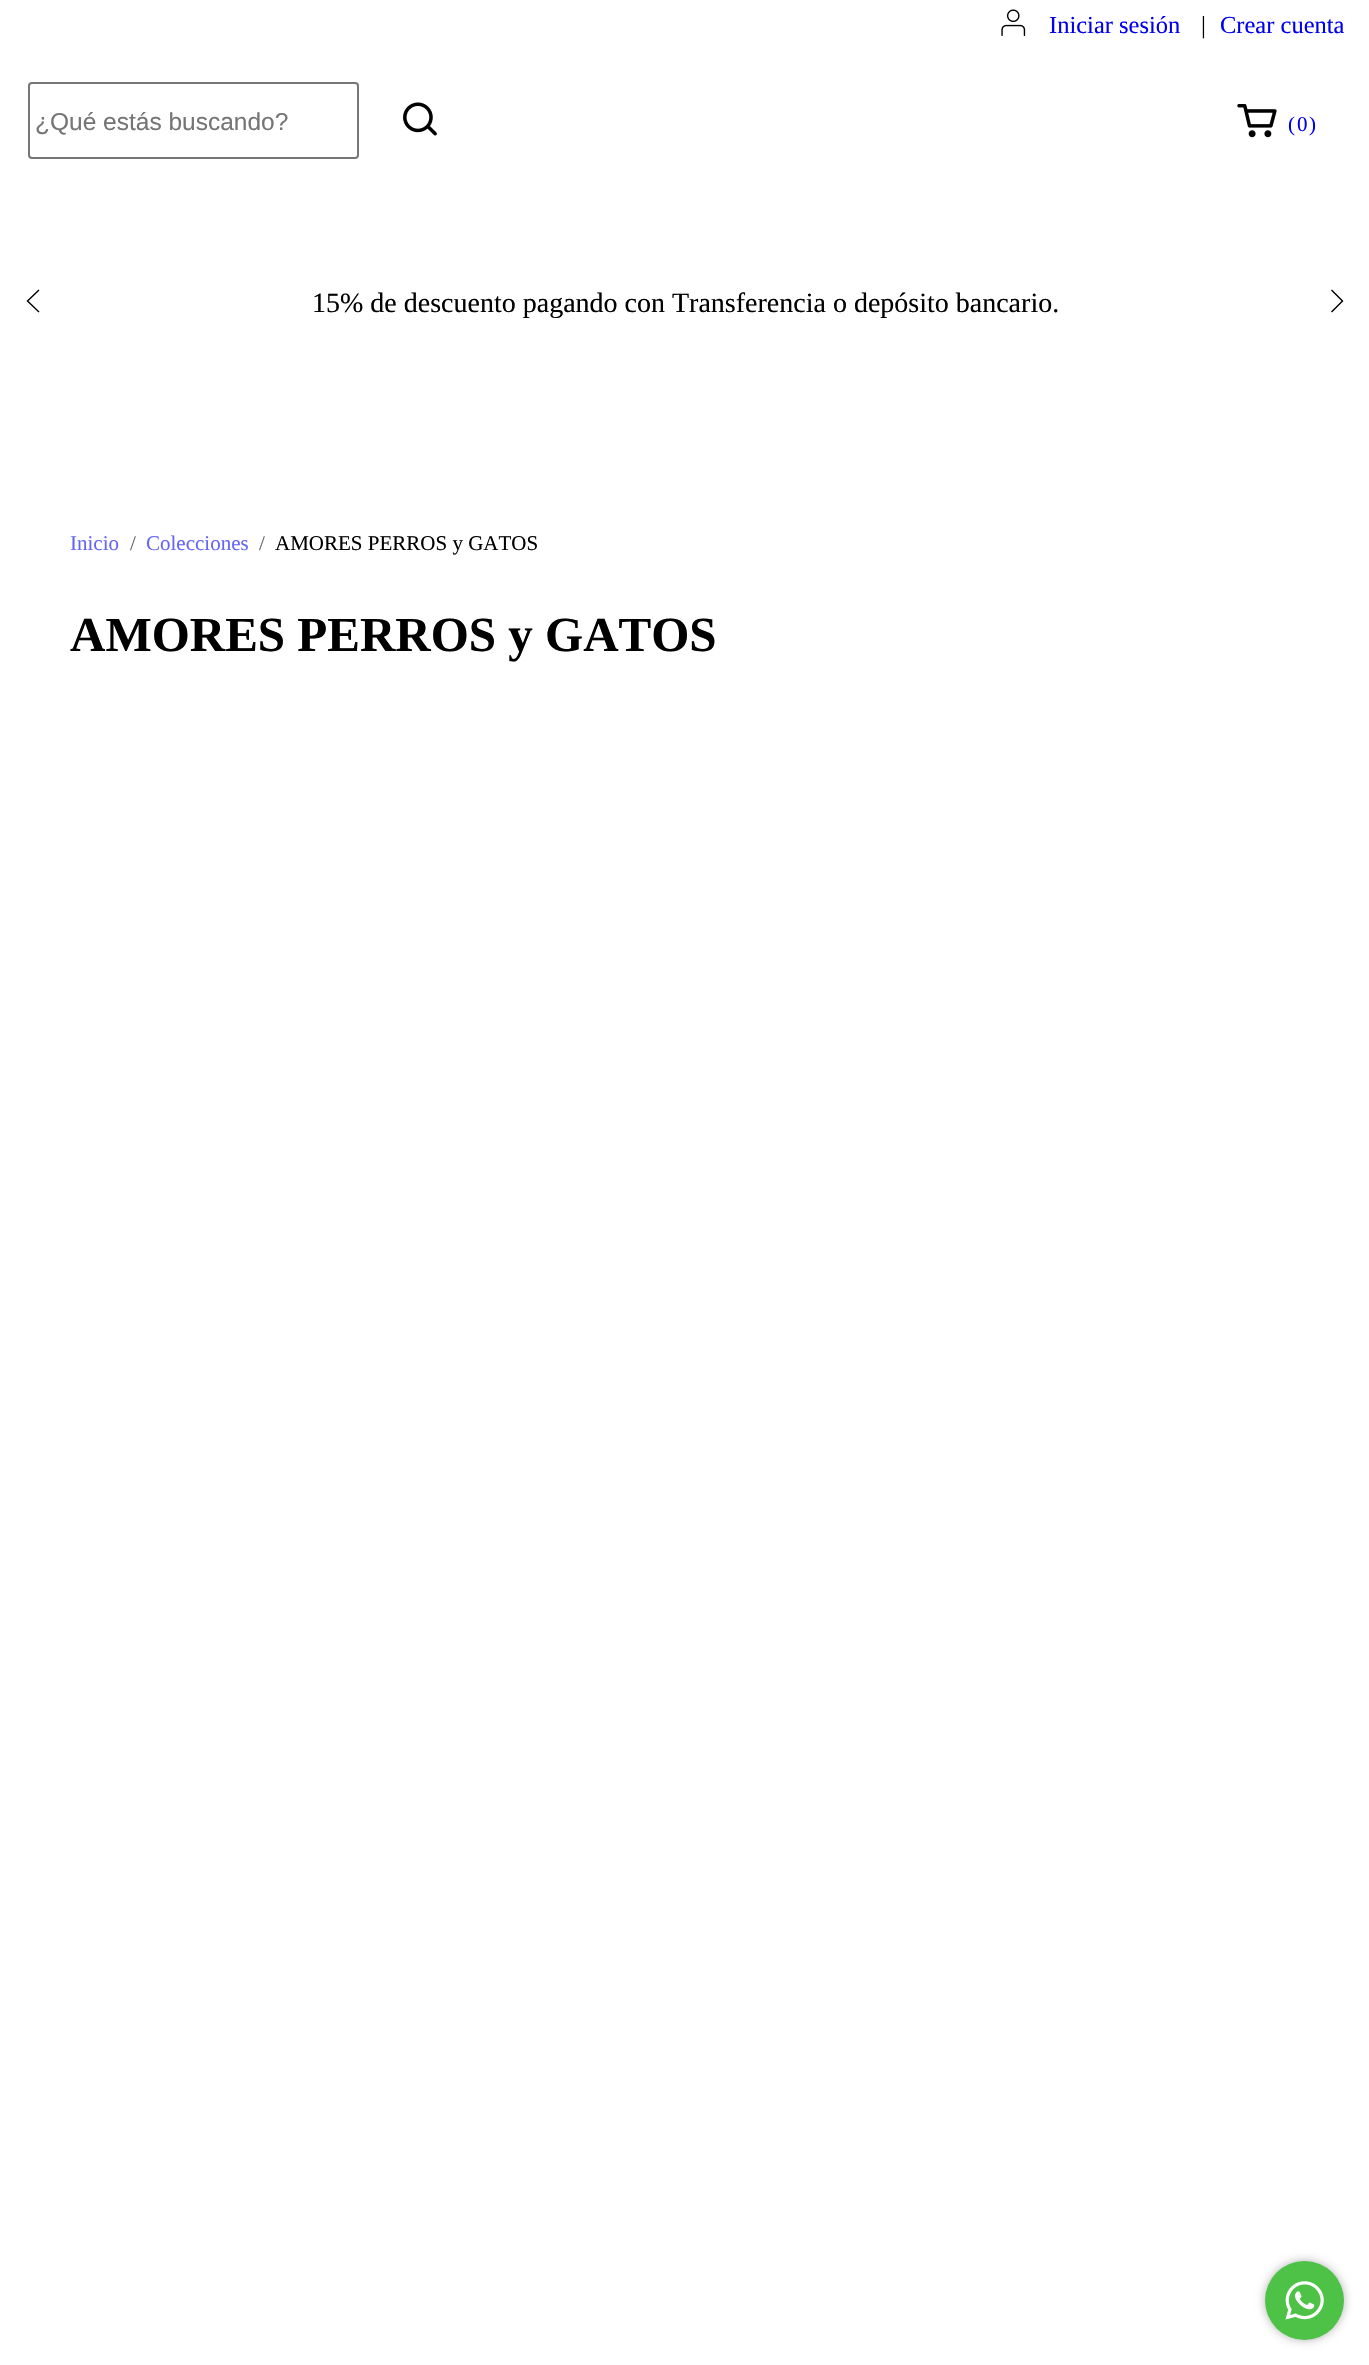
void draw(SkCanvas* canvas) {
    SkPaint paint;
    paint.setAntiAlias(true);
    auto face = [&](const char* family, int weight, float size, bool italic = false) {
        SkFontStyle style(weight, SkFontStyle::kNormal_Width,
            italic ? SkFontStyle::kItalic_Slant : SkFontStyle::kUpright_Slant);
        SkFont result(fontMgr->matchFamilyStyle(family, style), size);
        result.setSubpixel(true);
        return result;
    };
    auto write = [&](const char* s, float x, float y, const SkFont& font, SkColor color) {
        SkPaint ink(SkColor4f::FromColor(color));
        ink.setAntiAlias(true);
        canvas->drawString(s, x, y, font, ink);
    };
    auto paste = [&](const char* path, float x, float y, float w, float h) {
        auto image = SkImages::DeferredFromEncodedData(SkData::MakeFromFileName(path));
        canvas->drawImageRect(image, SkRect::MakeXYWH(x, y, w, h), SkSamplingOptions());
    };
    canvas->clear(SK_ColorWHITE);
    paste("pic1.png", 1001, 9, 25, 27);
    auto kFont1 = face("Liberation Serif", 400, 24.5f);
    write("Iniciar sesión", 1049, 33, kFont1, SkColorSetRGB(0, 0, 238));
    write("|", 1201, 33, kFont1, SK_ColorBLACK);
    write("Crear cuenta", 1220, 33, kFont1, SkColorSetRGB(0, 0, 238));
    paint.setStyle(SkPaint::kStroke_Style);
    paint.setStrokeWidth(2);
    paint.setColor(SkColorSetRGB(118, 118, 118));
    canvas->drawRoundRect(SkRect::MakeXYWH(29, 83, 329, 75), 3, 3, paint);
    auto kFont2 = face("Liberation Sans", 400, 24.5f);
    write("¿Qué estás buscando?", 35, 130, kFont2, SkColorSetRGB(117, 117, 117));
    paste("pic2.png", 403, 102, 34, 34);
    paste("pic3.png", 1237, 104, 40, 34);
    auto kFont3 = face("Liberation Serif", 400, 21);
    write("(", 1288, 131, kFont3, SkColorSetRGB(0, 0, 238));
    write("0", 1297, 131, kFont3, SkColorSetRGB(0, 0, 238));
    write(")", 1309, 131, kFont3, SkColorSetRGB(0, 0, 238));
    paint.setStyle(SkPaint::kFill_Style);
    paint.setColor(SK_ColorBLACK);
    canvas->drawPath(SkPathBuilder().moveTo(39.5f, 311.5f).lineTo(38.5f, 312.5f).lineTo(26.5f, 301).lineTo(38.5f, 289.5f).lineTo(39.5f, 290.5f).lineTo(28.5f, 301).close().detach(), paint);
    auto kFont4 = face("Liberation Serif", 400, 28);
    write("15% de descuento pagando con Transferencia o depósito bancario.", 312, 312, kFont4, SK_ColorBLACK);
    canvas->drawPath(SkPathBuilder().moveTo(1341.5f, 301).lineTo(1331, 290.5f).lineTo(1332, 289.5f).lineTo(1343.5f, 301).lineTo(1332, 312.5f).lineTo(1331, 311.5f).close().detach(), paint);
    write("Inicio", 70, 550, kFont3, SkColorSetRGB(102, 102, 245));
    write("/", 130, 550, kFont3, SkColorSetRGB(102, 102, 102));
    write("Colecciones", 146, 550, kFont3, SkColorSetRGB(102, 102, 245));
    write("/", 259, 550, kFont3, SkColorSetRGB(102, 102, 102));
    write("AMORES PERROS y GATOS", 275, 550, kFont3, SK_ColorBLACK);
    auto kFont5 = face("Liberation Serif", 700, 49);
    write("AMORES PERROS y GATOS", 70, 651, kFont5, SK_ColorBLACK);
    paint.setColor(SkColorSetARGB(77, 0, 0, 0));
    paint.setMaskFilter(SkMaskFilter::MakeBlur(kNormal_SkBlurStyle, 5));
    canvas->drawRoundRect(SkRect::MakeXYWH(1265, 2261, 79, 79), 39.5f, 39.5f, paint);
    paint.setMaskFilter(nullptr);
    paint.setColor(SkColorSetRGB(77, 194, 71));
    canvas->drawCircle(1304.5f, 2300.5f, 39.5f, paint);
    paste("pic4.png", 1285, 2281, 39, 39);
}
